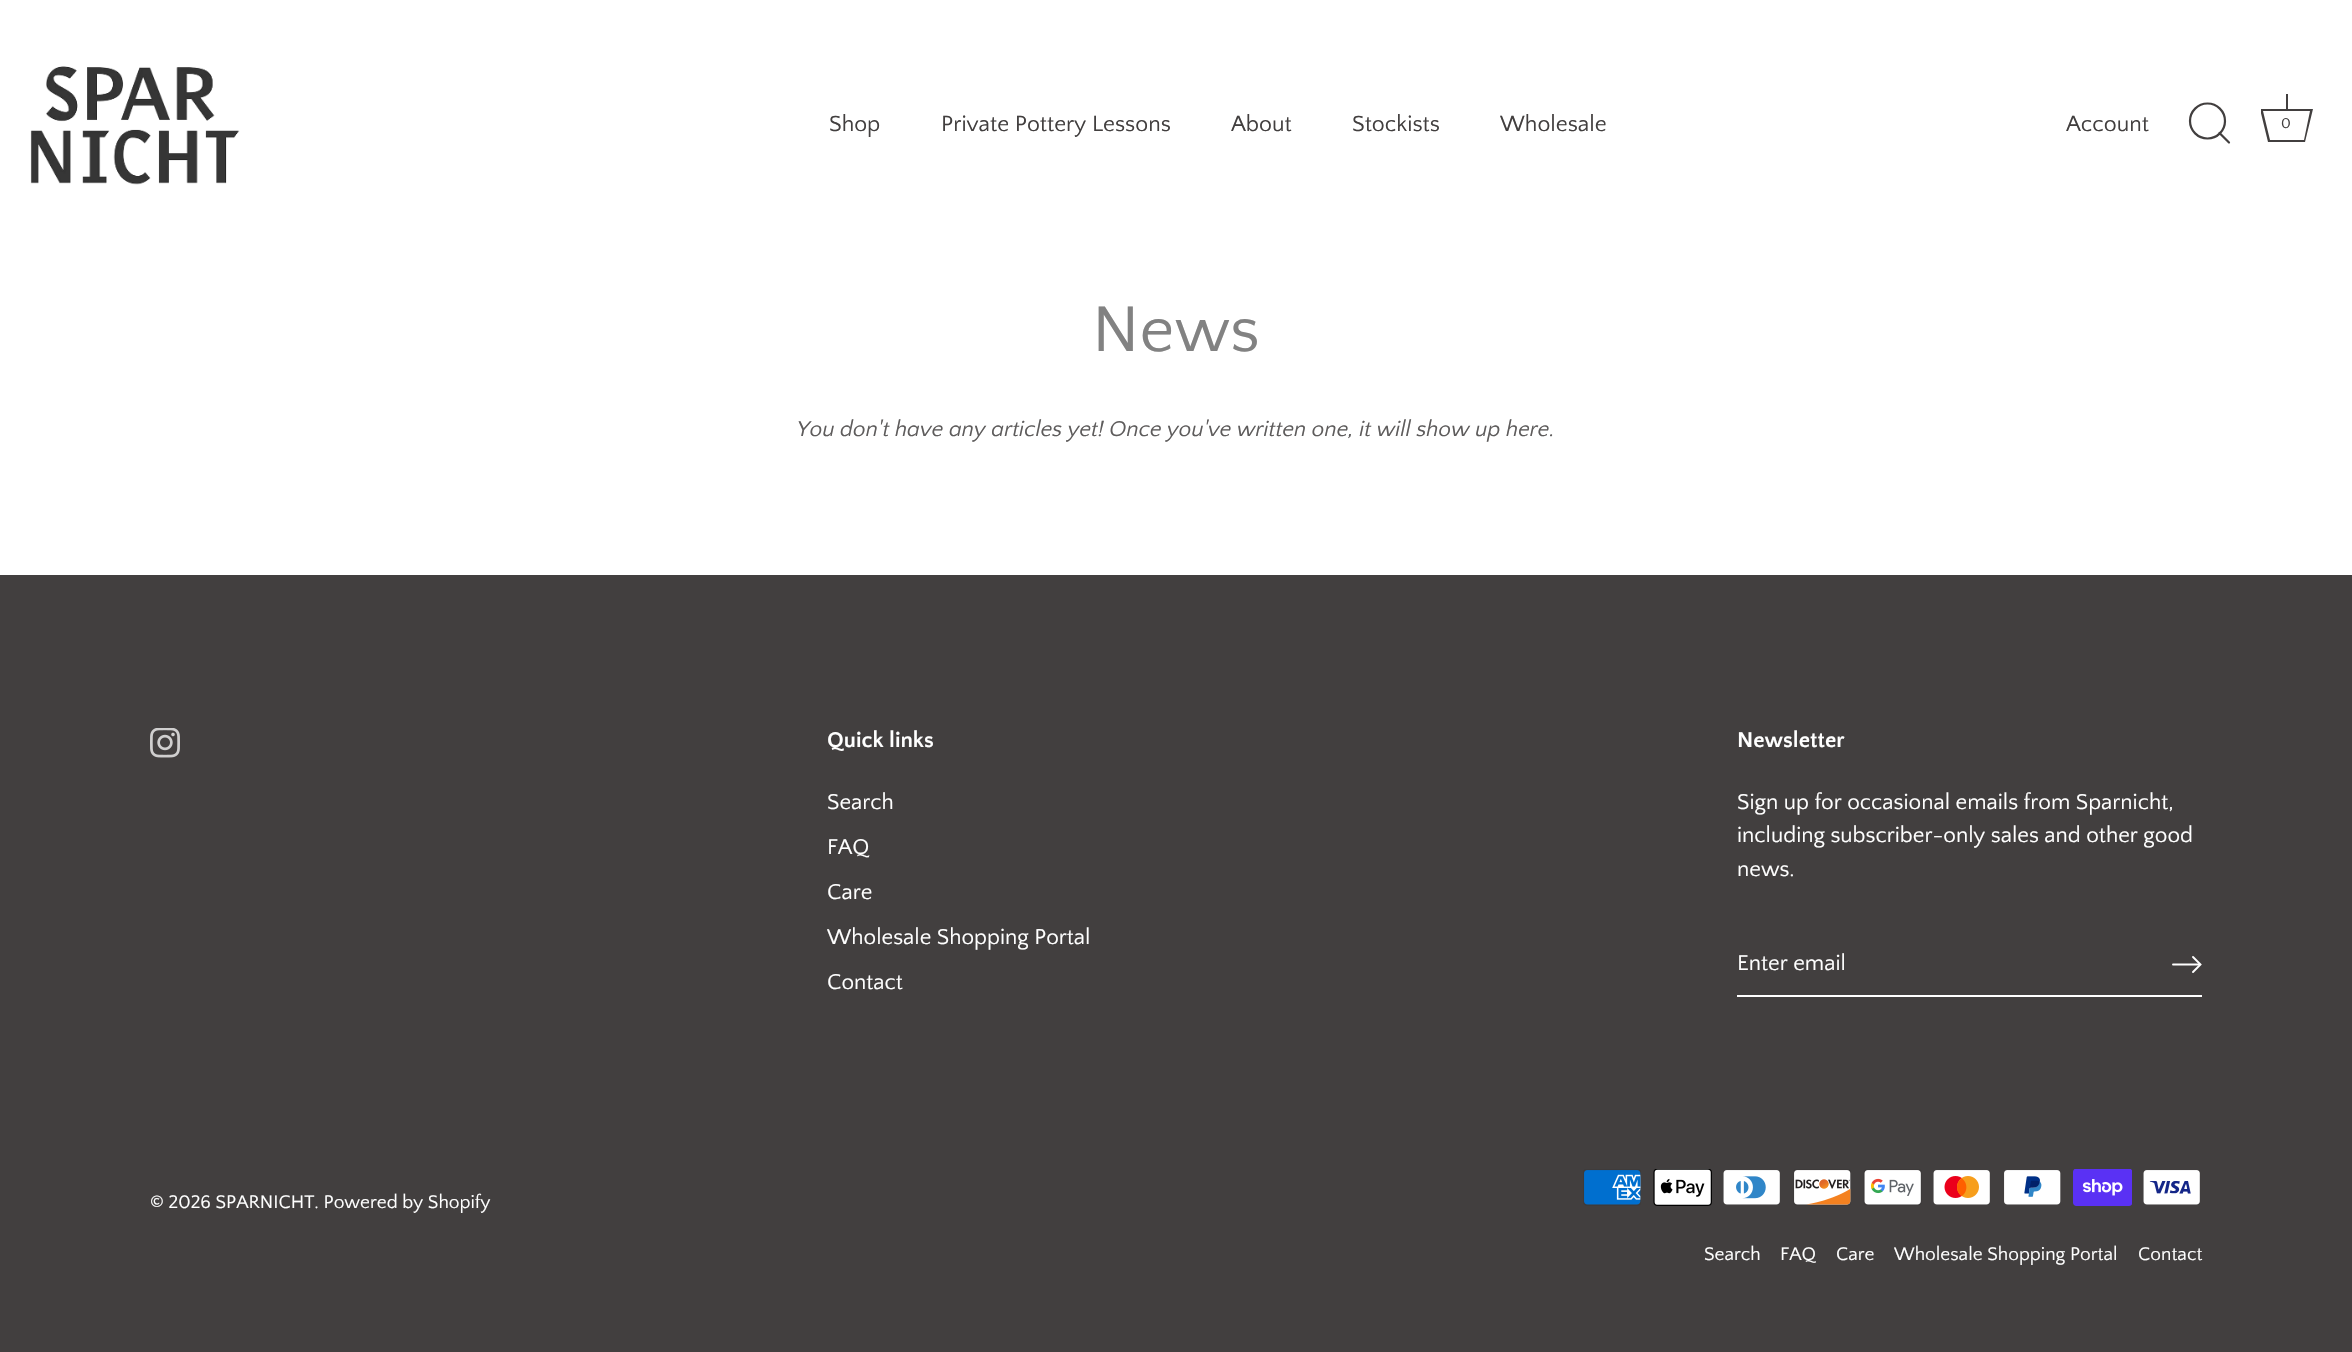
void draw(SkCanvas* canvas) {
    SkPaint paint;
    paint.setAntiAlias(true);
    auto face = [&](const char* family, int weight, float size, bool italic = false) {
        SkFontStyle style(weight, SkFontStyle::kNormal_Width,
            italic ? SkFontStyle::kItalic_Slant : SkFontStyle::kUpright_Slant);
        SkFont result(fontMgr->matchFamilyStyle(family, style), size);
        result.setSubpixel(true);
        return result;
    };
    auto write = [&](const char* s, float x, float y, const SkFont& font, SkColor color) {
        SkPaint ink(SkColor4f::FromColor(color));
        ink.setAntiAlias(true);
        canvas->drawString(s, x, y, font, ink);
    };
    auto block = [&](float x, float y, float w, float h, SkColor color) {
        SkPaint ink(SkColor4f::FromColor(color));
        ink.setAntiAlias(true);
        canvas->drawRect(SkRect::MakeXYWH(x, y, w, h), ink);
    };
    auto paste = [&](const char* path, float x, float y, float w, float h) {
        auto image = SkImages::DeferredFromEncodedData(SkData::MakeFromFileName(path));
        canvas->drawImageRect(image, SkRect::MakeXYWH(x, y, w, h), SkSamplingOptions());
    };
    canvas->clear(SK_ColorWHITE);
    paste("pic1.png", 30, 66, 210, 119);
    auto kFont1 = face("Quattrocento Sans", 400, 23);
    write("Shop", 829, 131, kFont1, SkColorSetRGB(66, 63, 63));
    write("Private Pottery Lessons", 941, 131, kFont1, SkColorSetRGB(66, 63, 63));
    write("About", 1231, 131, kFont1, SkColorSetRGB(66, 63, 63));
    write("Stockists", 1352, 131, kFont1, SkColorSetRGB(66, 63, 63));
    write("Wholesale", 1500, 131, kFont1, SkColorSetRGB(66, 63, 63));
    write("Account", 2066, 131, kFont1, SkColorSetRGB(66, 63, 63));
    paint.setStyle(SkPaint::kStroke_Style);
    paint.setStrokeWidth(2.2f);
    paint.setColor(SkColorSetRGB(66, 63, 63));
    canvas->drawCircle(2207.5f, 121, 17.5f, paint);
    paint.setStrokeCap(SkPaint::kRound_Cap);
    paint.setStrokeJoin(SkPaint::kRound_Join);
    canvas->drawPath(SkPathBuilder().moveTo(2229, 142.5f).lineTo(2219.5f, 133).detach(), paint);
    block(2286, 94, 2, 15, SkColorSetRGB(66, 63, 63));
    canvas->save();
    canvas->clipRect(SkRect::MakeXYWH(2261, 92, 52, 52));
    paint.setStyle(SkPaint::kFill_Style);
    canvas->drawPath(SkPathBuilder().moveTo(2310, 111).lineTo(2304, 140).lineTo(2270, 140).lineTo(2263, 111).lineTo(2310, 111).moveTo(2313, 109).lineTo(2260, 109).lineTo(2268, 142).lineTo(2305, 142).close().detach(), paint);
    canvas->restore();
    auto kFont2 = face("Quattrocento Sans", 400, 15);
    write("0", 2281, 128, kFont2, SkColorSetRGB(66, 63, 63));
    auto kFont3 = face("Quattrocento Sans", 400, 67.5f);
    write("News", 1092, 351, kFont3, SkColorSetRGB(130, 130, 130));
    auto kFont4 = face("Quattrocento Sans", 400, 22.5f, true);
    write("You don't have any articles yet! Once you've written one, it will show up here.", 797, 436, kFont4, SkColorSetRGB(94, 92, 92));
    block(0, 575, 2352, 777, SkColorSetRGB(66, 63, 63));
    paste("pic2.png", 150, 728, 30, 30);
    auto kFont5 = face("Quattrocento Sans", 700, 22.5f);
    write("Quick links", 827, 747, kFont5, SK_ColorWHITE);
    auto kFont6 = face("Quattrocento Sans", 400, 22.5f);
    write("Search", 827, 809, kFont6, SK_ColorWHITE);
    write("FAQ", 827, 854, kFont6, SK_ColorWHITE);
    write("Care", 827, 899, kFont6, SK_ColorWHITE);
    write("Wholesale Shopping Portal", 827, 944, kFont6, SK_ColorWHITE);
    write("Contact", 827, 989, kFont6, SK_ColorWHITE);
    write("Newsletter", 1737, 747, kFont5, SK_ColorWHITE);
    write("Sign up for occasional emails from Sparnicht,", 1737, 809, kFont6, SK_ColorWHITE);
    write("including subscriber-only sales and other good", 1737, 842, kFont6, SK_ColorWHITE);
    write("news.", 1737, 876, kFont6, SK_ColorWHITE);
    block(1737, 995, 465, 2, SK_ColorWHITE);
    write("Enter email", 1737, 970, kFont6, SK_ColorWHITE);
    paint.setStyle(SkPaint::kStroke_Style);
    paint.setStrokeWidth(1.9f);
    paint.setStrokeJoin(SkPaint::kMiter_Join);
    paint.setColor(SK_ColorWHITE);
    canvas->drawPath(SkPathBuilder().moveTo(2193, 972).lineTo(2200.5f, 964.5f).lineTo(2193, 957).detach(), paint);
    paint.setStrokeJoin(SkPaint::kRound_Join);
    canvas->drawPath(SkPathBuilder().moveTo(2199.5f, 964.5f).lineTo(2173, 964.5f).detach(), paint);
    auto kFont7 = face("Quattrocento Sans", 400, 19.1f);
    write("© 2026 SPARNICHT. Powered by Shopify", 150, 1208, kFont7, SK_ColorWHITE);
    paste("pic3.png", 1583, 1169, 58, 37);
    paste("pic4.png", 1653, 1169, 59, 37);
    paste("pic5.png", 1723, 1170, 57, 35);
    paste("pic6.png", 1793, 1169, 58, 37);
    paste("pic7.png", 1863, 1169, 59, 37);
    paste("pic8.png", 1933, 1170, 57, 35);
    paste("pic9.png", 2004, 1170, 57, 35);
    paste("pic10.png", 2073, 1169, 59, 37);
    paste("pic11.png", 2143, 1170, 57, 35);
    write("Search", 1704, 1260, kFont7, SK_ColorWHITE);
    write("FAQ", 1780, 1260, kFont7, SK_ColorWHITE);
    write("Care", 1836, 1260, kFont7, SK_ColorWHITE);
    write("Wholesale Shopping Portal", 1894, 1260, kFont7, SK_ColorWHITE);
    write("Contact", 2138, 1260, kFont7, SK_ColorWHITE);
}
